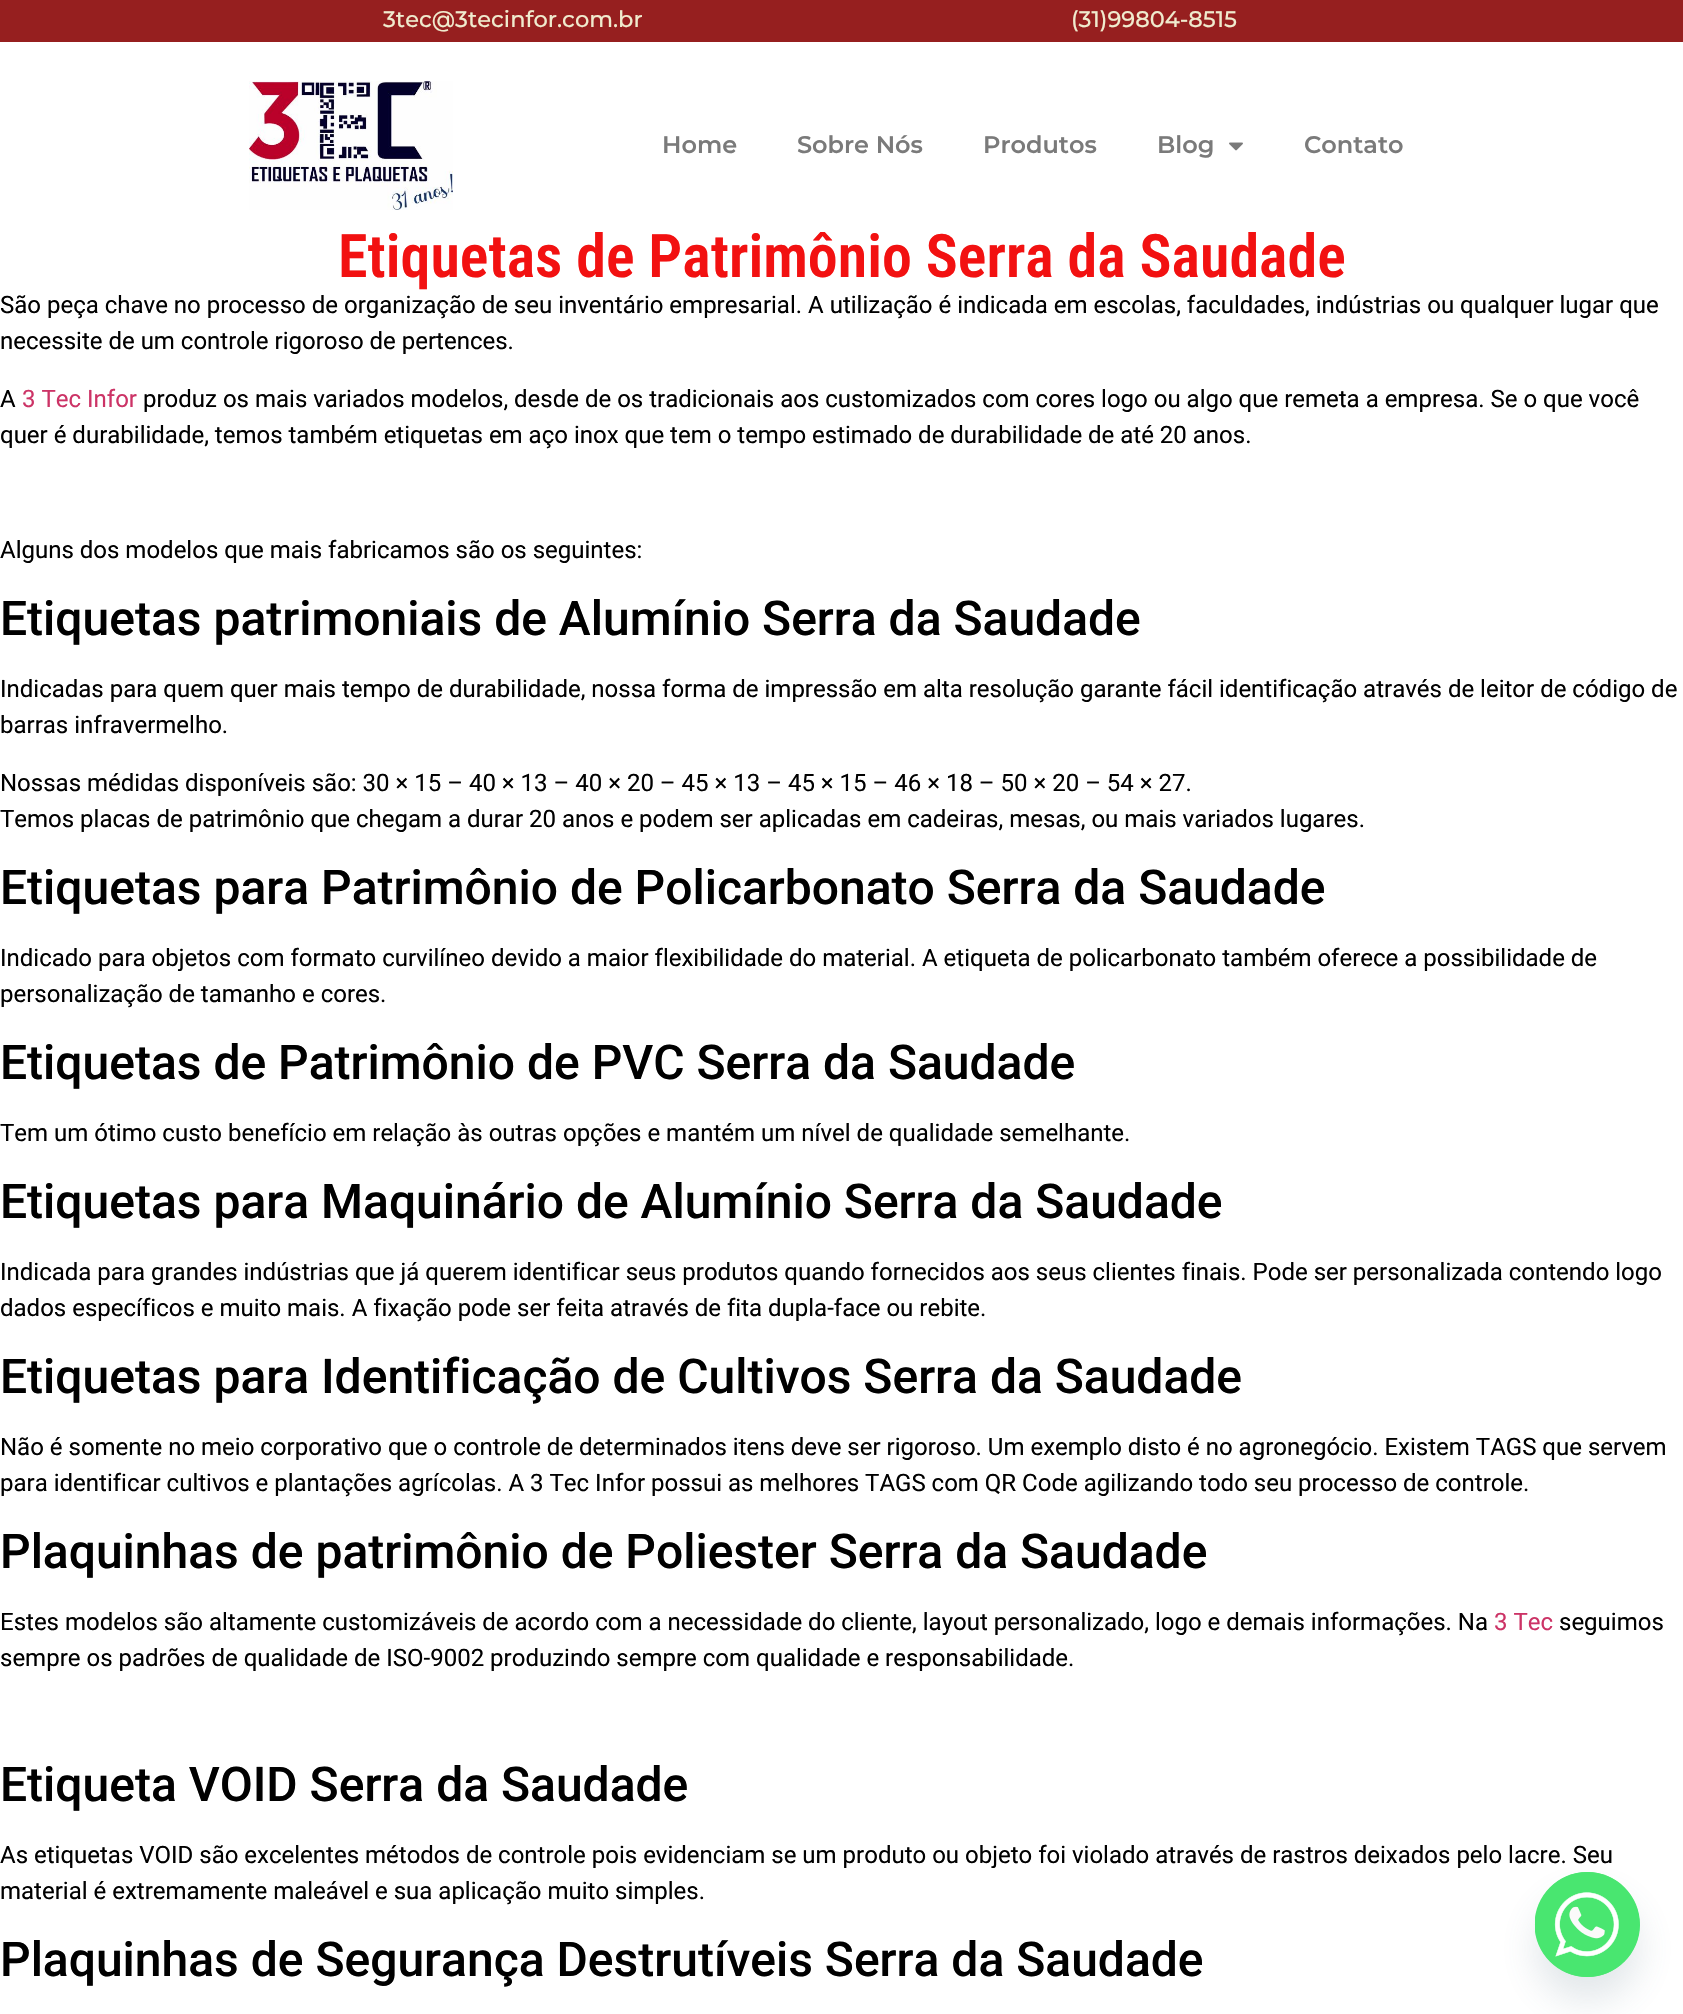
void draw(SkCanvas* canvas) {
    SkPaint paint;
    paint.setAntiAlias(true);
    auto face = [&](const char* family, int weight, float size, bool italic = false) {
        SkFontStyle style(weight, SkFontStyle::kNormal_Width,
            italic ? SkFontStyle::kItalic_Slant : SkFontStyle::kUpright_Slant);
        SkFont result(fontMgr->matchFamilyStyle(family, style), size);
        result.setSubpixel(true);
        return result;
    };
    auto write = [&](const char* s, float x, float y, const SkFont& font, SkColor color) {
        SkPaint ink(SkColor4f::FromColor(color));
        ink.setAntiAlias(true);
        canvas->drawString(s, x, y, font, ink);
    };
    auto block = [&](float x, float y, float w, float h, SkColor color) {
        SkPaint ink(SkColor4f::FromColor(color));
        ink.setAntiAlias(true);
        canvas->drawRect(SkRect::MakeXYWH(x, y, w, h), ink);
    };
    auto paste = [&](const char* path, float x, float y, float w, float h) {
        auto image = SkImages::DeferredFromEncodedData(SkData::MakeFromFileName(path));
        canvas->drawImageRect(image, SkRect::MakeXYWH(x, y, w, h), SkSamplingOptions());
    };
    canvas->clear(SK_ColorWHITE);
    block(0, 0, 1683, 42, SkColorSetRGB(150, 31, 31));
    auto kFont1 = face("Montserrat", 500, 22.5f);
    write("3tec@3tecinfor.com.br", 383, 27, kFont1, SkColorSetRGB(240, 235, 206));
    write("(31)99804-8515", 1071, 27, kFont1, SkColorSetRGB(240, 235, 206));
    paste("pic1.png", 249, 81, 204, 129);
    auto kFont2 = face("Montserrat", 600, 24);
    write("Home", 662, 153, kFont2, SkColorSetRGB(122, 122, 122));
    write("Sobre Nós", 797, 153, kFont2, SkColorSetRGB(122, 122, 122));
    write("Produtos", 983, 153, kFont2, SkColorSetRGB(122, 122, 122));
    write("Blog", 1157, 153, kFont2, SkColorSetRGB(122, 122, 122));
    paste("pic2.png", 1229, 142, 14, 9);
    write("Contato", 1304, 153, kFont2, SkColorSetRGB(122, 122, 122));
    auto kFont3 = face("Roboto Condensed", 600, 60);
    write("Etiquetas de Patrimônio Serra da Saudade", 338, 277, kFont3, SkColorSetRGB(242, 17, 17));
    auto kFont4 = face("Roboto", 400, 24);
    write("São peça chave no processo de organização de seu inventário empresarial. A utilização é indicada em escolas, faculdades, indústrias ou qualquer lugar que", 0, 313, kFont4, SK_ColorBLACK);
    write("necessite de um controle rigoroso de pertences.", 0, 349, kFont4, SK_ColorBLACK);
    write("A", 0, 407, kFont4, SK_ColorBLACK);
    write("3 Tec Infor", 22, 407, kFont4, SkColorSetRGB(204, 51, 102));
    write("produz os mais variados modelos, desde de os tradicionais aos customizados com cores logo ou algo que remeta a empresa. Se o que você", 143, 407, kFont4, SK_ColorBLACK);
    write("quer é durabilidade, temos também etiquetas em aço inox que tem o tempo estimado de durabilidade de até 20 anos.", 0, 443, kFont4, SK_ColorBLACK);
    write("Alguns dos modelos que mais fabricamos são os seguintes:", 0, 558, kFont4, SK_ColorBLACK);
    auto kFont5 = face("Roboto", 500, 48);
    write("Etiquetas patrimoniais de Alumínio Serra da Saudade", 0, 635, kFont5, SK_ColorBLACK);
    write("Indicadas para quem quer mais tempo de durabilidade, nossa forma de impressão em alta resolução garante fácil identificação através de leitor de código de", 0, 697, kFont4, SK_ColorBLACK);
    write("barras infravermelho.", 0, 733, kFont4, SK_ColorBLACK);
    write("Nossas médidas disponíveis são: 30 × 15 – 40 × 13 – 40 × 20 – 45 × 13 – 45 × 15 – 46 × 18 – 50 × 20 – 54 × 27.", 0, 791, kFont4, SK_ColorBLACK);
    write("Temos placas de patrimônio que chegam a durar 20 anos e podem ser aplicadas em cadeiras, mesas, ou mais variados lugares.", 0, 827, kFont4, SK_ColorBLACK);
    write("Etiquetas para Patrimônio de Policarbonato Serra da Saudade", 0, 904, kFont5, SK_ColorBLACK);
    write("Indicado para objetos com formato curvilíneo devido a maior flexibilidade do material. A etiqueta de policarbonato também oferece a possibilidade de", 0, 966, kFont4, SK_ColorBLACK);
    write("personalização de tamanho e cores.", 0, 1002, kFont4, SK_ColorBLACK);
    write("Etiquetas de Patrimônio de PVC Serra da Saudade", 0, 1079, kFont5, SK_ColorBLACK);
    write("Tem um ótimo custo benefício em relação às outras opções e mantém um nível de qualidade semelhante.", 0, 1141, kFont4, SK_ColorBLACK);
    write("Etiquetas para Maquinário de Alumínio Serra da Saudade", 0, 1218, kFont5, SK_ColorBLACK);
    write("Indicada para grandes indústrias que já querem identificar seus produtos quando fornecidos aos seus clientes finais. Pode ser personalizada contendo logo", 0, 1280, kFont4, SK_ColorBLACK);
    write("dados específicos e muito mais. A fixação pode ser feita através de fita dupla-face ou rebite.", 0, 1316, kFont4, SK_ColorBLACK);
    write("Etiquetas para Identificação de Cultivos Serra da Saudade", 0, 1393, kFont5, SK_ColorBLACK);
    write("Não é somente no meio corporativo que o controle de determinados itens deve ser rigoroso. Um exemplo disto é no agronegócio. Existem TAGS que servem", 0, 1455, kFont4, SK_ColorBLACK);
    write("para identificar cultivos e plantações agrícolas. A 3 Tec Infor possui as melhores TAGS com QR Code agilizando todo seu processo de controle.", 0, 1491, kFont4, SK_ColorBLACK);
    write("Plaquinhas de patrimônio de Poliester Serra da Saudade", 0, 1568, kFont5, SK_ColorBLACK);
    write("Estes modelos são altamente customizáveis de acordo com a necessidade do cliente, layout personalizado, logo e demais informações. Na", 0, 1630, kFont4, SK_ColorBLACK);
    write("3 Tec", 1494, 1630, kFont4, SkColorSetRGB(204, 51, 102));
    write("seguimos", 1559, 1630, kFont4, SK_ColorBLACK);
    write("sempre os padrões de qualidade de ISO-9002 produzindo sempre com qualidade e responsabilidade.", 0, 1666, kFont4, SK_ColorBLACK);
    write("Etiqueta VOID Serra da Saudade", 0, 1801, kFont5, SK_ColorBLACK);
    write("As etiquetas VOID são excelentes métodos de controle pois evidenciam se um produto ou objeto foi violado através de rastros deixados pelo lacre. Seu", 0, 1863, kFont4, SK_ColorBLACK);
    write("material é extremamente maleável e sua aplicação muito simples.", 0, 1899, kFont4, SK_ColorBLACK);
    write("Plaquinhas de Segurança Destrutíveis Serra da Saudade", 0, 1976, kFont5, SK_ColorBLACK);
    paint.setColor(SkColorSetARGB(41, 73, 104, 126));
    paint.setMaskFilter(SkMaskFilter::MakeBlur(kNormal_SkBlurStyle, 18));
    canvas->drawRoundRect(SkRect::MakeXYWH(1535, 1896, 105, 105), 52.5f, 52.5f, paint);
    paint.setMaskFilter(nullptr);
    paint.setColor(SkColorSetRGB(73, 230, 112));
    canvas->drawCircle(1587.5f, 1924.5f, 52.5f, paint);
    paste("pic3.png", 1535, 1872, 105, 105);
}
